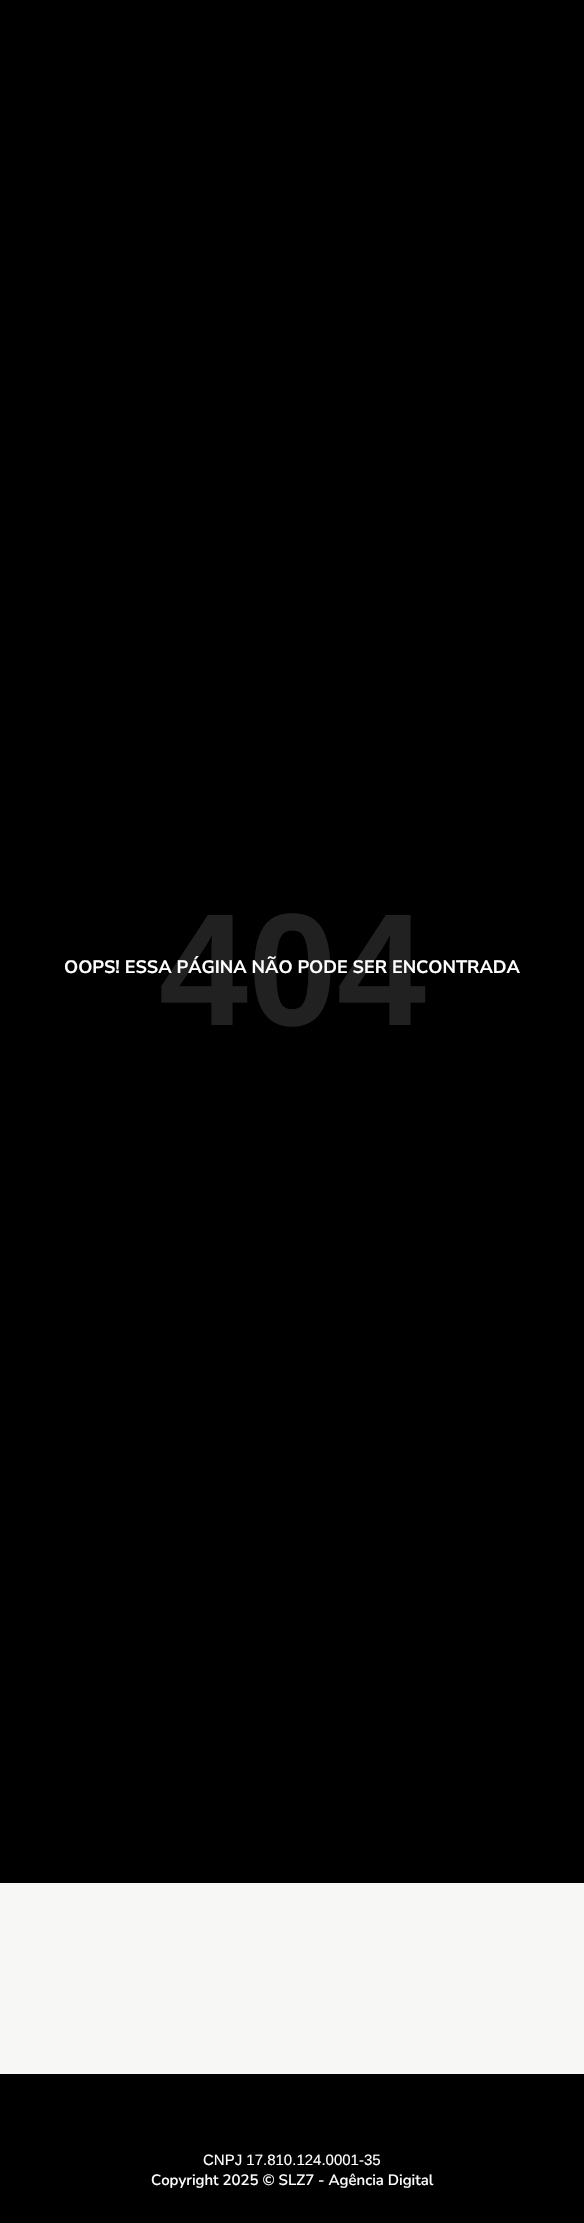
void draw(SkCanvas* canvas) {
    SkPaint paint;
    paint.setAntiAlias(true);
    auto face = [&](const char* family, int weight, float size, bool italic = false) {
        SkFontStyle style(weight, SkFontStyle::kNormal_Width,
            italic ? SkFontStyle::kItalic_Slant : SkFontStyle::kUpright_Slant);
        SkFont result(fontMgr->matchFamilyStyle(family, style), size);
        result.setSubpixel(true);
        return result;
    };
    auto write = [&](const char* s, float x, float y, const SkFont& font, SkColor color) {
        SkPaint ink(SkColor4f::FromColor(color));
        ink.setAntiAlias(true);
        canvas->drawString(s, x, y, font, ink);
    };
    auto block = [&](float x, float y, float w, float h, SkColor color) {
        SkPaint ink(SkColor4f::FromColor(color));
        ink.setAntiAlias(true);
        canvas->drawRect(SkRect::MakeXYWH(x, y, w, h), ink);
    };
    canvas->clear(SkColorSetRGB(247, 247, 245));
    block(0, 0, 584, 1883, SK_ColorBLACK);
    auto kFont1 = face("Liberation Sans", 700, 160);
    write("404", 159, 1025, kFont1, SkColorSetRGB(33, 33, 33));
    auto kFont2 = face("Nunito Sans", 700, 18);
    write("OOPS! ESSA PÁGINA NÃO PODE SER ENCONTRADA", 64, 973, kFont2, SK_ColorWHITE);
    block(0, 2074, 584, 149, SK_ColorBLACK);
    auto kFont3 = face("Liberation Sans", 400, 15);
    write("CNPJ 17.810.124.0001-35", 203, 2165, kFont3, SK_ColorWHITE);
    auto kFont4 = face("Nunito Sans", 600, 15);
    write("Copyright 2025 © SLZ7 - Agência Digital", 151, 2185, kFont4, SK_ColorWHITE);
}
